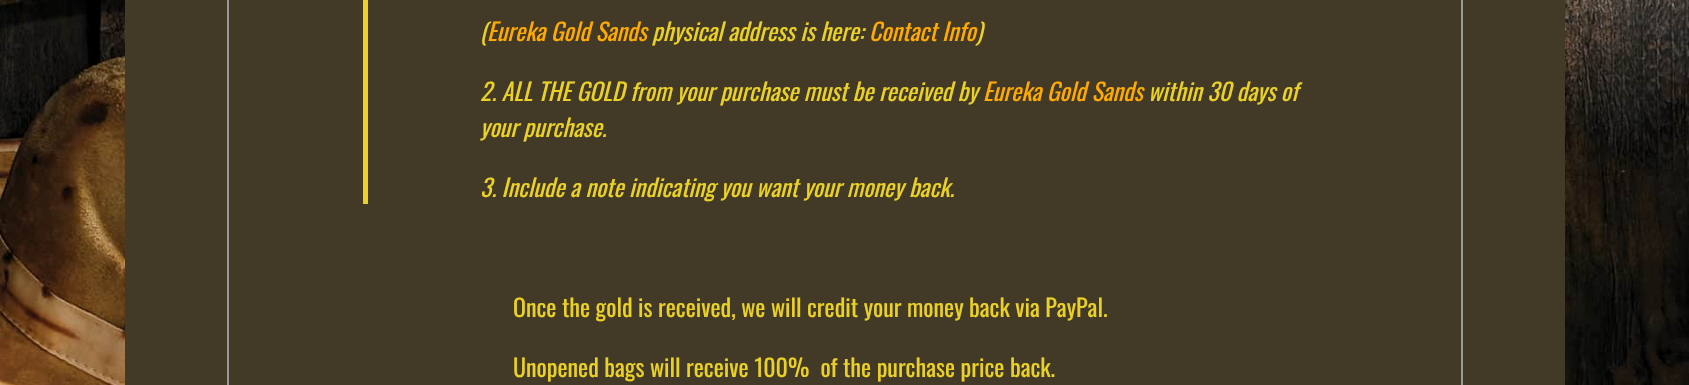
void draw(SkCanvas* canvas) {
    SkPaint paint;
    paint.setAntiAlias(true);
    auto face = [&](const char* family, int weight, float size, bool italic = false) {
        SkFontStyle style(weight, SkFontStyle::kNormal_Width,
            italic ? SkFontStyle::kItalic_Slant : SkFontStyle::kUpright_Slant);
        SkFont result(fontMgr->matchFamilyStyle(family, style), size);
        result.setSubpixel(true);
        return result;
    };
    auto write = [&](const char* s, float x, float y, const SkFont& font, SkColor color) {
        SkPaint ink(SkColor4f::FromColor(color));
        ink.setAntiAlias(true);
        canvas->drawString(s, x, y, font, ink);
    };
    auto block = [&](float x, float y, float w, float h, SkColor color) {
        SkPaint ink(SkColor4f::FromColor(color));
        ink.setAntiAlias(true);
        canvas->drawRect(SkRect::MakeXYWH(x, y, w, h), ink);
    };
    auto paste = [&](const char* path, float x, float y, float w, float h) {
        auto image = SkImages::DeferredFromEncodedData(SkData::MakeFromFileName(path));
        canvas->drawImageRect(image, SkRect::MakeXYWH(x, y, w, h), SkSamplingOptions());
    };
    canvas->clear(SK_ColorWHITE);
    paste("pic1.png", 0, 0, 1689, 385);
    block(125, 0, 1440, 385, SkColorSetRGB(66, 58, 39));
    paint.setStyle(SkPaint::kStroke_Style);
    paint.setStrokeWidth(2);
    paint.setColor(SkColorSetRGB(153, 153, 153));
    canvas->drawRect(SkRect::MakeXYWH(228, -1, 1234, 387), paint);
    block(363, 0, 5, 204, SkColorSetRGB(235, 209, 38));
    auto kFont1 = face("Oswald", 400, 24, true);
    write("(", 480, 41, kFont1, SkColorSetRGB(235, 209, 38));
    write("Eureka Gold Sands", 487, 41, kFont1, SkColorSetRGB(255, 170, 0));
    write("physical address is here:", 652, 41, kFont1, SkColorSetRGB(235, 209, 38));
    write("Contact Info", 869, 41, kFont1, SkColorSetRGB(255, 170, 0));
    write(")", 976, 41, kFont1, SkColorSetRGB(235, 209, 38));
    write("2. ALL THE GOLD from your purchase must be received by", 480, 101, kFont1, SkColorSetRGB(235, 209, 38));
    write("Eureka Gold Sands", 983, 101, kFont1, SkColorSetRGB(255, 170, 0));
    write("within 30 days of", 1148, 101, kFont1, SkColorSetRGB(235, 209, 38));
    write("your purchase.", 480, 137, kFont1, SkColorSetRGB(235, 209, 38));
    write("3. Include a note indicating you want your money back.", 480, 197, kFont1, SkColorSetRGB(235, 209, 38));
    auto kFont2 = face("Oswald", 400, 24);
    write("Once the gold is received, we will credit your money back via PayPal.", 513, 317, kFont2, SkColorSetRGB(235, 209, 38));
    write("Unopened bags will receive 100%  of the purchase price back.", 513, 377, kFont2, SkColorSetRGB(235, 209, 38));
}
